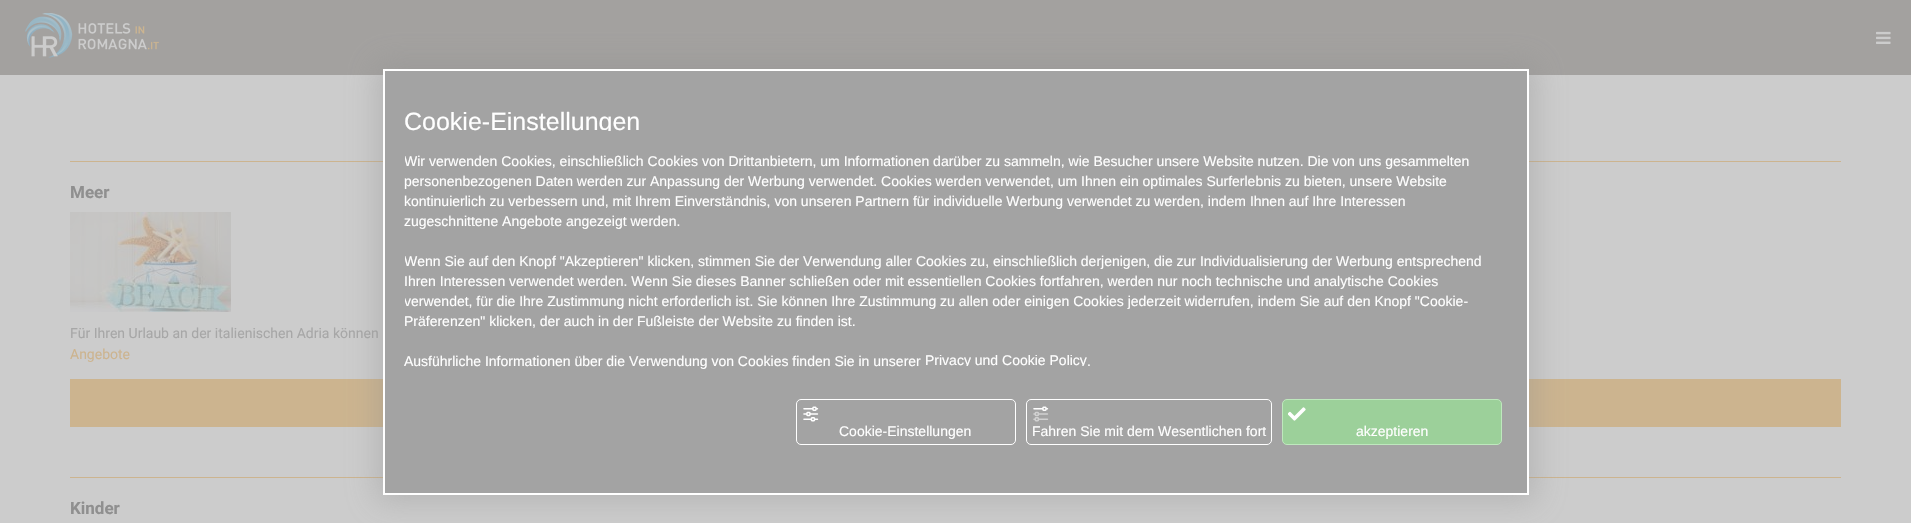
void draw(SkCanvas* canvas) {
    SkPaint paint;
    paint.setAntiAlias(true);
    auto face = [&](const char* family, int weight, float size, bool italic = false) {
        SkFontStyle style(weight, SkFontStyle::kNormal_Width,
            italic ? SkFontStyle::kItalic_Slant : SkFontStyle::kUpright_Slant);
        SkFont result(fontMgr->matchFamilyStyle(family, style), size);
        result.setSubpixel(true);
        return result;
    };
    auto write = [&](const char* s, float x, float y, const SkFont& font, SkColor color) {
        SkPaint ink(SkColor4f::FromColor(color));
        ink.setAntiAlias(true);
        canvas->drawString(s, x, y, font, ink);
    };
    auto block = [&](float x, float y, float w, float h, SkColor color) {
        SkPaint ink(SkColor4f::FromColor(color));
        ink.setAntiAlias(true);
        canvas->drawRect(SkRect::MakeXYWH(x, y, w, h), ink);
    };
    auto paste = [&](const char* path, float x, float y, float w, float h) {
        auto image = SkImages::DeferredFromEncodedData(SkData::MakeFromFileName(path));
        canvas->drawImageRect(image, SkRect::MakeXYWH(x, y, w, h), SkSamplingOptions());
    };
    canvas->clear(SkColorSetRGB(204, 204, 204));
    block(0, 0, 1911, 75, SkColorSetRGB(163, 161, 159));
    paste("pic1.png", 25, 13, 134, 45);
    paste("pic2.png", 1876, 31, 15, 13);
    block(70, 161, 1771, 1, SkColorSetRGB(204, 180, 143));
    auto kFont1 = face("Roboto", 700, 17);
    write("Meer", 70, 198, kFont1, SkColorSetRGB(143, 143, 143));
    paste("pic3.png", 70, 212, 161, 100);
    auto kFont2 = face("Roboto", 400, 14);
    write("Für Ihren Urlaub an der italienischen Adria können", 70, 338, kFont2, SkColorSetRGB(167, 167, 167));
    write("Angebote", 70, 359, kFont2, SkColorSetRGB(204, 180, 143));
    block(70, 379, 1771, 48, SkColorSetRGB(204, 180, 143));
    block(70, 477, 1771, 1, SkColorSetRGB(204, 180, 143));
    write("Kinder", 70, 514, kFont1, SkColorSetRGB(143, 143, 143));
    paint.setColor(SkColorSetARGB(97, 143, 143, 143));
    paint.setMaskFilter(SkMaskFilter::MakeBlur(kNormal_SkBlurStyle, 14.5f));
    canvas->drawRect(SkRect::MakeXYWH(376, 62, 1160, 440), paint);
    paint.setMaskFilter(nullptr);
    paint.setColor(SkColorSetRGB(163, 163, 163));
    canvas->drawRect(SkRect::MakeXYWH(384, 70, 1144, 424), paint);
    paint.setStyle(SkPaint::kStroke_Style);
    paint.setStrokeWidth(2);
    paint.setColor(SK_ColorWHITE);
    canvas->drawRect(SkRect::MakeXYWH(384, 70, 1144, 424), paint);
    canvas->save();
    canvas->clipRect(SkRect::MakeXYWH(405, 111, 236, 20));
    auto kFont3 = face("Liberation Sans", 400, 25);
    write("Cookie-Einstellungen", 404, 130, kFont3, SK_ColorWHITE);
    canvas->restore();
    canvas->save();
    canvas->clipRect(SkRect::MakeXYWH(405, 151, 1102, 220));
    auto kFont4 = face("Liberation Sans", 400, 14);
    write("Wir verwenden Cookies, einschließlich Cookies von Drittanbietern, um Informationen darüber zu sammeln, wie Besucher unsere Website nutzen. Die von uns gesammelten", 404, 166, kFont4, SK_ColorWHITE);
    canvas->restore();
    write("personenbezogenen Daten werden zur Anpassung der Werbung verwendet. Cookies werden verwendet, um Ihnen ein optimales Surferlebnis zu bieten, unsere Website", 404, 186, kFont4, SK_ColorWHITE);
    write("kontinuierlich zu verbessern und, mit Ihrem Einverständnis, von unseren Partnern für individuelle Werbung verwendet zu werden, indem Ihnen auf Ihre Interessen", 404, 206, kFont4, SK_ColorWHITE);
    write("zugeschnittene Angebote angezeigt werden.", 404, 226, kFont4, SK_ColorWHITE);
    canvas->save();
    canvas->clipRect(SkRect::MakeXYWH(405, 151, 1102, 220));
    write("Wenn Sie auf den Knopf \"Akzeptieren\" klicken, stimmen Sie der Verwendung aller Cookies zu, einschließlich derjenigen, die zur Individualisierung der Werbung entsprechend", 404, 266, kFont4, SK_ColorWHITE);
    canvas->restore();
    write("Ihren Interessen verwendet werden. Wenn Sie dieses Banner schließen oder mit essentiellen Cookies fortfahren, werden nur noch technische und analytische Cookies", 404, 286, kFont4, SK_ColorWHITE);
    canvas->save();
    canvas->clipRect(SkRect::MakeXYWH(405, 151, 1102, 220));
    write("verwendet, für die Ihre Zustimmung nicht erforderlich ist. Sie können Ihre Zustimmung zu allen oder einigen Cookies jederzeit widerrufen, indem Sie auf den Knopf \"Cookie-", 404, 306, kFont4, SK_ColorWHITE);
    canvas->restore();
    write("Präferenzen\" klicken, der auch in der Fußleiste der Website zu finden ist.", 404, 326, kFont4, SK_ColorWHITE);
    write("Ausführliche Informationen über die Verwendung von Cookies finden Sie in unserer", 404, 366, kFont4, SK_ColorWHITE);
    canvas->save();
    canvas->clipRect(SkRect::MakeXYWH(925, 355, 162, 11));
    write("Privacy und Cookie Policy", 925, 365, kFont4, SK_ColorWHITE);
    canvas->restore();
    write(".", 1087, 366, kFont4, SK_ColorWHITE);
    paint.setStrokeWidth(1);
    canvas->drawRoundRect(SkRect::MakeXYWH(796.5f, 399.5f, 219, 45), 4.5f, 4.5f, paint);
    paste("pic4.png", 803, 406, 16, 16);
    write("Cookie-Einstellungen", 839, 436, kFont4, SK_ColorWHITE);
    canvas->drawRoundRect(SkRect::MakeXYWH(1026.5f, 399.5f, 245, 45), 4.5f, 4.5f, paint);
    paste("pic5.png", 1033, 406, 16, 16);
    write("Fahren Sie mit dem Wesentlichen fort", 1032, 436, kFont4, SK_ColorWHITE);
    paint.setStyle(SkPaint::kFill_Style);
    paint.setColor(SkColorSetRGB(156, 208, 154));
    canvas->drawRoundRect(SkRect::MakeXYWH(1282.5f, 399.5f, 219, 45), 4.5f, 4.5f, paint);
    paint.setStyle(SkPaint::kStroke_Style);
    paint.setColor(SkColorSetRGB(190, 232, 189));
    canvas->drawRoundRect(SkRect::MakeXYWH(1282.5f, 399.5f, 219, 45), 4.5f, 4.5f, paint);
    paste("pic6.png", 1288, 407, 18, 14);
    write("akzeptieren", 1356, 436, kFont4, SK_ColorWHITE);
}
